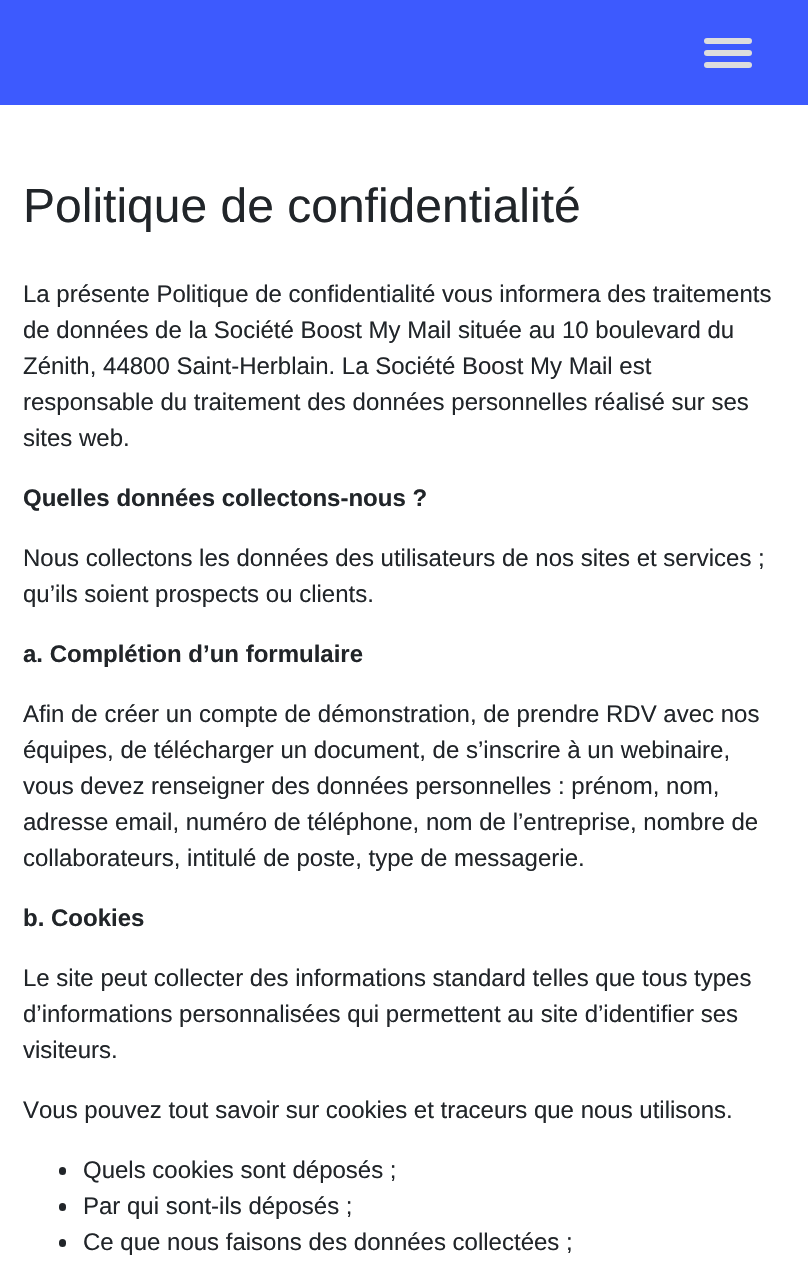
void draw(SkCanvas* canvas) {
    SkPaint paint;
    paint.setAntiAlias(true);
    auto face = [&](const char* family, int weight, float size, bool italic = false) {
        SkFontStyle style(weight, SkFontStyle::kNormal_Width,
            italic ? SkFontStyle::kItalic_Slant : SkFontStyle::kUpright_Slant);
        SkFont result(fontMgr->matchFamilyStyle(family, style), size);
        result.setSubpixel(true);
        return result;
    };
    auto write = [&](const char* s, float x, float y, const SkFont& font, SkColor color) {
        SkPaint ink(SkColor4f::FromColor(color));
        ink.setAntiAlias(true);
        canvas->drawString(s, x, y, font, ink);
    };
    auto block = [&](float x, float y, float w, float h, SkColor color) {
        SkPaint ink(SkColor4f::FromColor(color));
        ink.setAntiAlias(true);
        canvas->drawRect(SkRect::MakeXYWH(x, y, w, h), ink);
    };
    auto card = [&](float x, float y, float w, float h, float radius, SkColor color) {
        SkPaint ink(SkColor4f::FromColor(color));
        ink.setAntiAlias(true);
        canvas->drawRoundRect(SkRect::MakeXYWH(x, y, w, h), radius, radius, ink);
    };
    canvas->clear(SK_ColorWHITE);
    block(0, 0, 808, 105, SkColorSetRGB(61, 90, 254));
    card(704, 38, 48, 6, 3, SkColorSetRGB(221, 221, 221));
    card(704, 50, 48, 6, 3, SkColorSetRGB(221, 221, 221));
    card(704, 62, 48, 6, 3, SkColorSetRGB(221, 221, 221));
    auto kFont1 = face("Liberation Sans", 400, 48);
    write("Politique de confidentialité", 23, 222, kFont1, SkColorSetRGB(33, 37, 41));
    auto kFont2 = face("Liberation Sans", 400, 24);
    write("La présente Politique de confidentialité vous informera des traitements", 23, 302, kFont2, SkColorSetRGB(33, 37, 41));
    write("de données de la Société Boost My Mail située au 10 boulevard du", 23, 338, kFont2, SkColorSetRGB(33, 37, 41));
    write("Zénith, 44800 Saint-Herblain. La Société Boost My Mail est", 23, 374, kFont2, SkColorSetRGB(33, 37, 41));
    write("responsable du traitement des données personnelles réalisé sur ses", 23, 410, kFont2, SkColorSetRGB(33, 37, 41));
    write("sites web.", 23, 446, kFont2, SkColorSetRGB(33, 37, 41));
    auto kFont3 = face("Liberation Sans", 700, 24);
    write("Quelles données collectons-nous ?", 23, 506, kFont3, SkColorSetRGB(33, 37, 41));
    write("Nous collectons les données des utilisateurs de nos sites et services ;", 23, 566, kFont2, SkColorSetRGB(33, 37, 41));
    write("qu’ils soient prospects ou clients.", 23, 602, kFont2, SkColorSetRGB(33, 37, 41));
    write("a. Complétion d’un formulaire", 23, 662, kFont3, SkColorSetRGB(33, 37, 41));
    write("Afin de créer un compte de démonstration, de prendre RDV avec nos", 23, 722, kFont2, SkColorSetRGB(33, 37, 41));
    write("équipes, de télécharger un document, de s’inscrire à un webinaire,", 23, 758, kFont2, SkColorSetRGB(33, 37, 41));
    write("vous devez renseigner des données personnelles : prénom, nom,", 23, 794, kFont2, SkColorSetRGB(33, 37, 41));
    write("adresse email, numéro de téléphone, nom de l’entreprise, nombre de", 23, 830, kFont2, SkColorSetRGB(33, 37, 41));
    write("collaborateurs, intitulé de poste, type de messagerie.", 23, 866, kFont2, SkColorSetRGB(33, 37, 41));
    write("b. Cookies", 23, 926, kFont3, SkColorSetRGB(33, 37, 41));
    write("Le site peut collecter des informations standard telles que tous types", 23, 986, kFont2, SkColorSetRGB(33, 37, 41));
    write("d’informations personnalisées qui permettent au site d’identifier ses", 23, 1022, kFont2, SkColorSetRGB(33, 37, 41));
    write("visiteurs.", 23, 1058, kFont2, SkColorSetRGB(33, 37, 41));
    write("Vous pouvez tout savoir sur cookies et traceurs que nous utilisons.", 23, 1118, kFont2, SkColorSetRGB(33, 37, 41));
    card(59, 1167, 7, 8, 3.5f, SkColorSetRGB(33, 37, 41));
    write("Quels cookies sont déposés ;", 83, 1178, kFont2, SkColorSetRGB(33, 37, 41));
    card(59, 1203, 7, 8, 3.5f, SkColorSetRGB(33, 37, 41));
    write("Par qui sont-ils déposés ;", 83, 1214, kFont2, SkColorSetRGB(33, 37, 41));
    card(59, 1239, 7, 8, 3.5f, SkColorSetRGB(33, 37, 41));
    write("Ce que nous faisons des données collectées ;", 83, 1250, kFont2, SkColorSetRGB(33, 37, 41));
}
